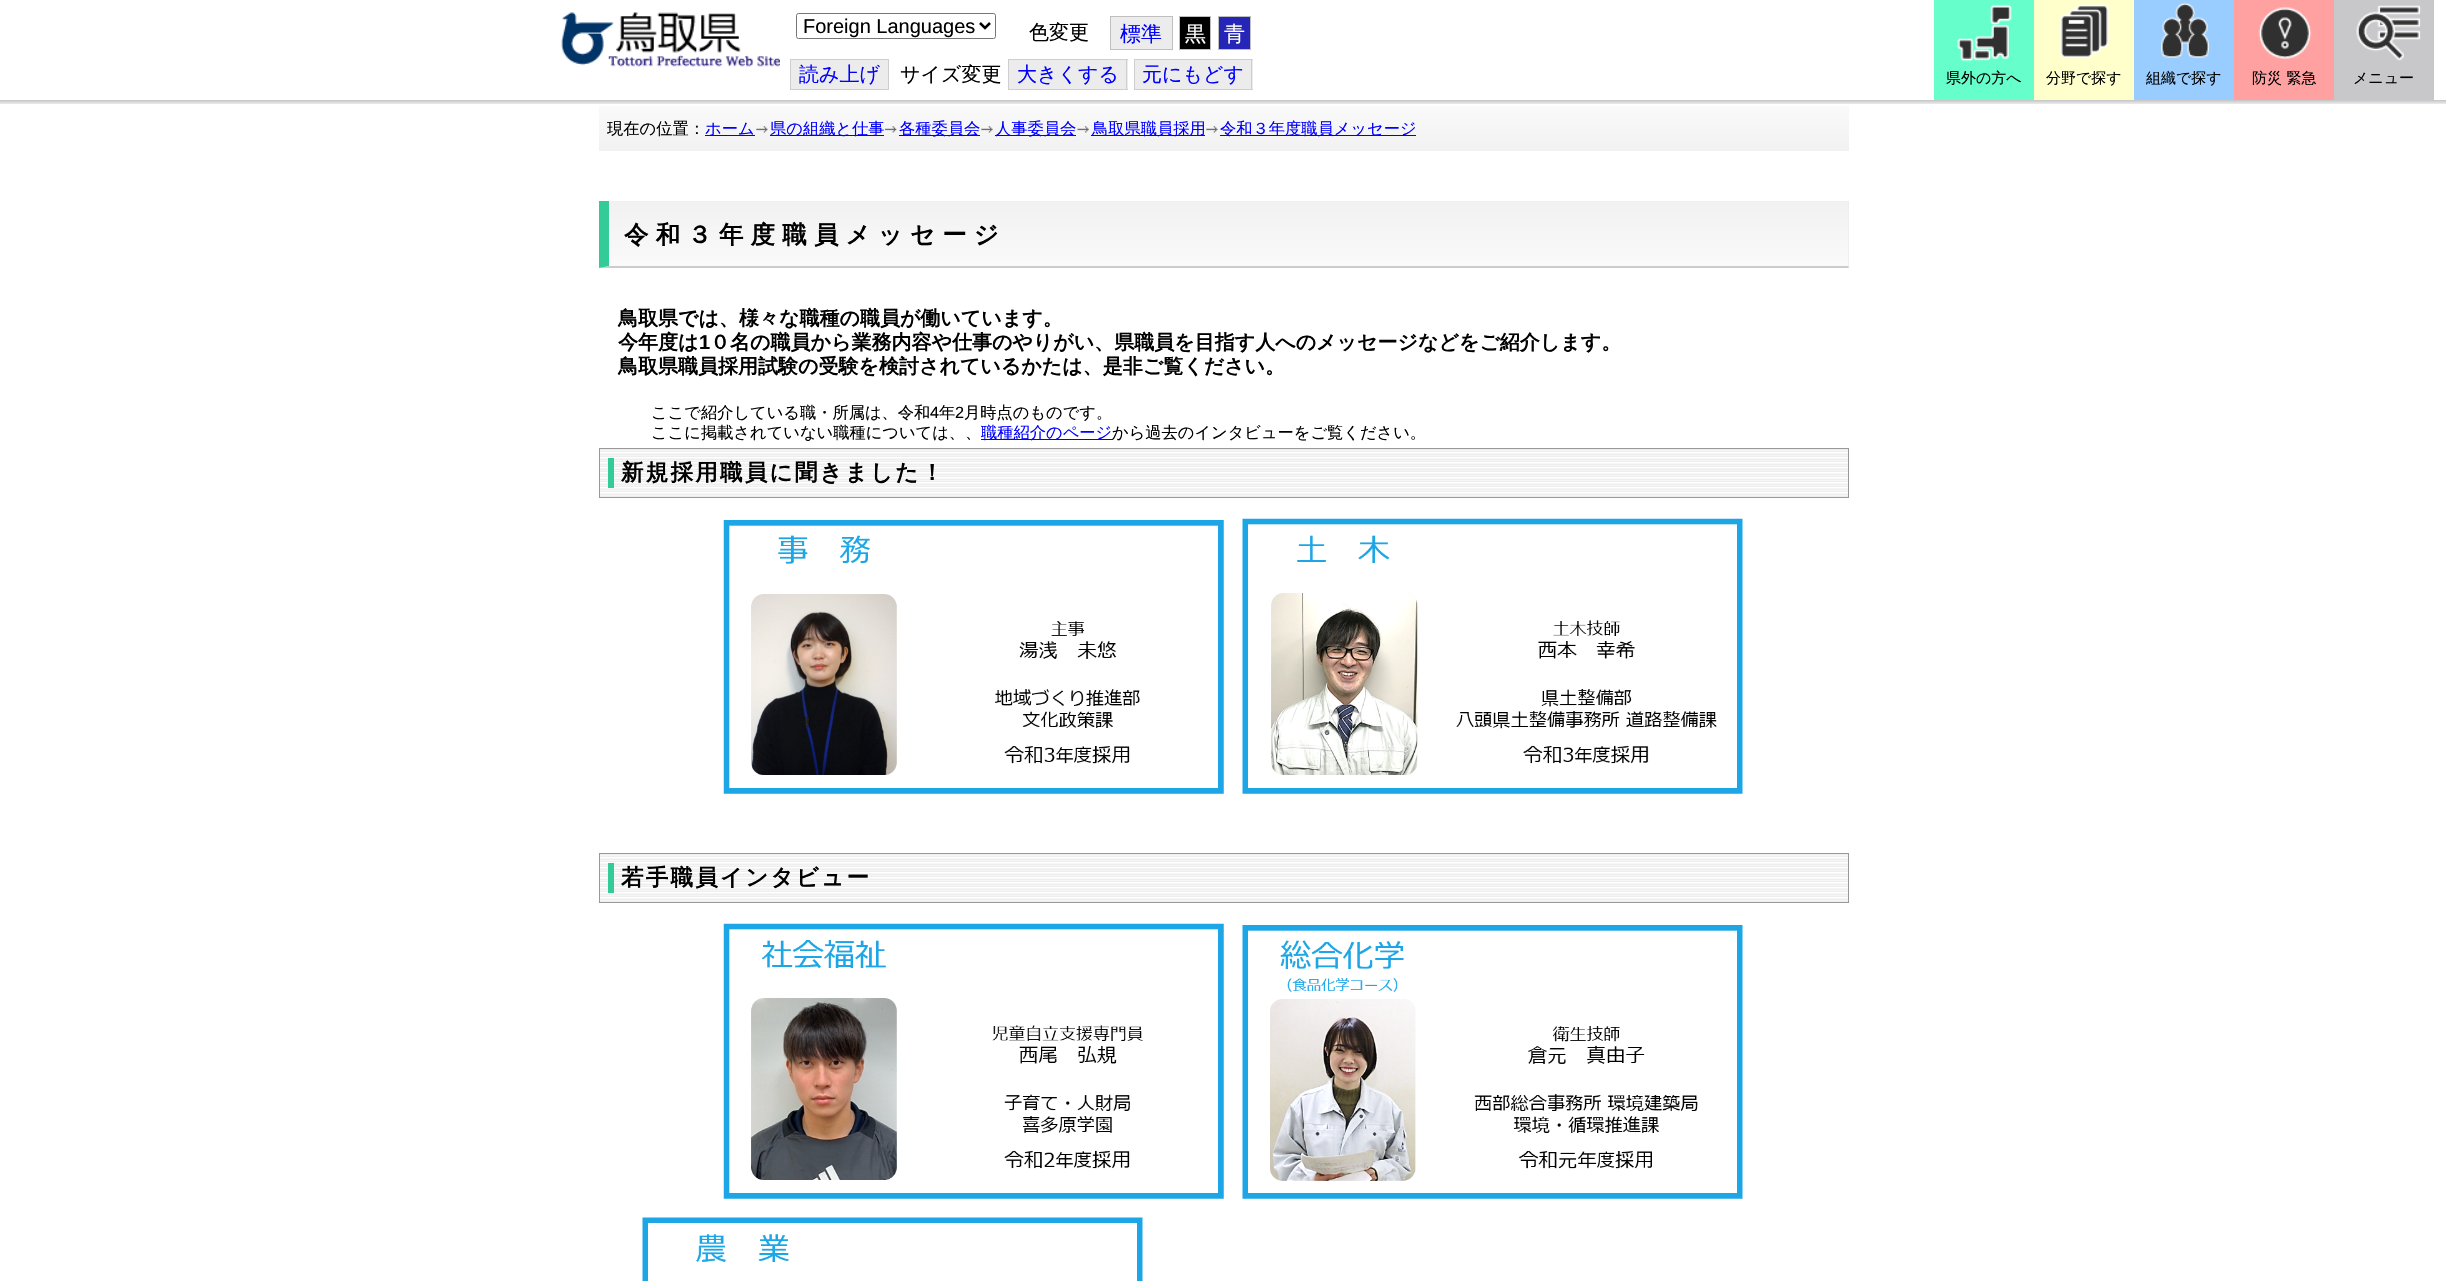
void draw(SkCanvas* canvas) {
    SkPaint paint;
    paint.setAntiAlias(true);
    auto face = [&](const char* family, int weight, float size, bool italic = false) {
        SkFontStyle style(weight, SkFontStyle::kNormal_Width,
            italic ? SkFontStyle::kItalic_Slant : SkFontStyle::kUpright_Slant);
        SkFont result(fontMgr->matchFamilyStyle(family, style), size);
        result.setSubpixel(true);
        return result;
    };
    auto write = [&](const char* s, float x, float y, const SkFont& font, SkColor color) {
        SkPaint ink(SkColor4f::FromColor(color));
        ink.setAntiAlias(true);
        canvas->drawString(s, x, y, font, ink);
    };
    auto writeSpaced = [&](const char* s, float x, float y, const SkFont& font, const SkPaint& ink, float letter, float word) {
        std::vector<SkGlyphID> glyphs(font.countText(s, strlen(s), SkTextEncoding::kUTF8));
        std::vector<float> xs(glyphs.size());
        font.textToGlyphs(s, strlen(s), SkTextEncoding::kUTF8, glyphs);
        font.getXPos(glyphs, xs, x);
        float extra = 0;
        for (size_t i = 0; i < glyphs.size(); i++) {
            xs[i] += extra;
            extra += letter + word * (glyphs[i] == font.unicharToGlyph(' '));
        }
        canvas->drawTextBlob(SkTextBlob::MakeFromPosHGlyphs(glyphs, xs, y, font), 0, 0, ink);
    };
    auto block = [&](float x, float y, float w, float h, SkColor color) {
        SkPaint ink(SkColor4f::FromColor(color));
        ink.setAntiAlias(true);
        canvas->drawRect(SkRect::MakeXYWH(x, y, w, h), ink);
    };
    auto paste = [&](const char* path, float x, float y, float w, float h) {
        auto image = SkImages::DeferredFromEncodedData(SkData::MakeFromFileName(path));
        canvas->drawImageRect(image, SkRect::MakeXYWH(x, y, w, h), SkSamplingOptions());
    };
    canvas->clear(SK_ColorWHITE);
    {
        const SkColor colors[] = {SkColorSetRGB(250, 250, 250), SkColorSetRGB(241, 241, 241)};
        const float stops[] = {0, 1};
        const SkPoint ends[] = {{1224, 106}, {1224, 151}};
        paint.setShader(SkGradientShader::MakeLinear(ends, colors, stops, 2, SkTileMode::kClamp));
        paint.setAlpha(255);
    }
    canvas->drawRect(SkRect::MakeXYWH(599, 106, 1250, 45), paint);
    canvas->save();
    canvas->clipRect(SkRect::MakeXYWH(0, 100, 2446, 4));
    paint.setShader(nullptr);
    paint.setColor(SkColorSetARGB(26, 0, 0, 0));
    paint.setMaskFilter(SkMaskFilter::MakeBlur(kNormal_SkBlurStyle, 3));
    canvas->drawRect(SkRect::MakeXYWH(-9, 1, 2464, 100), paint);
    paint.setMaskFilter(nullptr);
    paint.setMaskFilter(SkMaskFilter::MakeBlur(kNormal_SkBlurStyle, 3));
    canvas->drawRect(SkRect::MakeXYWH(-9, 1, 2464, 100), paint);
    paint.setMaskFilter(nullptr);
    paint.setMaskFilter(SkMaskFilter::MakeBlur(kNormal_SkBlurStyle, 3));
    canvas->drawRect(SkRect::MakeXYWH(-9, 1, 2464, 100), paint);
    paint.setMaskFilter(nullptr);
    paint.setMaskFilter(SkMaskFilter::MakeBlur(kNormal_SkBlurStyle, 3));
    canvas->drawRect(SkRect::MakeXYWH(-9, 1, 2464, 100), paint);
    paint.setMaskFilter(nullptr);
    canvas->restore();
    paste("pic1.png", 561, 12, 219, 55);
    paint.setStyle(SkPaint::kStroke_Style);
    paint.setStrokeWidth(1);
    paint.setColor(SkColorSetRGB(118, 118, 118));
    canvas->drawRoundRect(SkRect::MakeXYWH(796.5f, 13.5f, 199, 25), 2, 2, paint);
    paint.setStrokeWidth(2.5f);
    paint.setColor(SK_ColorBLACK);
    canvas->drawPath(SkPathBuilder().moveTo(980, 23).lineTo(985, 28).lineTo(990, 23).detach(), paint);
    auto kFont1 = face("Liberation Sans", 400, 20);
    write("Foreign Languages", 803, 33, kFont1, SK_ColorBLACK);
    auto kFont2 = face("WenQuanYi Zen Hei", 500, 20);
    write("色変更", 1029, 39, kFont2, SK_ColorBLACK);
    paint.setStyle(SkPaint::kFill_Style);
    paint.setColor(SkColorSetRGB(236, 236, 236));
    canvas->drawRect(SkRect::MakeXYWH(1110.5f, 16.5f, 62, 33), paint);
    paint.setStyle(SkPaint::kStroke_Style);
    paint.setStrokeWidth(1);
    paint.setColor(SkColorSetRGB(191, 191, 191));
    canvas->drawRect(SkRect::MakeXYWH(1110.5f, 16.5f, 62, 33), paint);
    auto kFont3 = face("WenQuanYi Zen Hei", 500, 21);
    write("標準", 1120, 41, kFont3, SkColorSetRGB(0, 0, 255));
    paint.setStyle(SkPaint::kFill_Style);
    paint.setColor(SK_ColorBLACK);
    canvas->drawRect(SkRect::MakeXYWH(1179.5f, 16.5f, 31, 33), paint);
    paint.setStyle(SkPaint::kStroke_Style);
    paint.setColor(SkColorSetRGB(191, 191, 191));
    canvas->drawRect(SkRect::MakeXYWH(1179.5f, 16.5f, 31, 33), paint);
    write("黒", 1185, 41, kFont3, SK_ColorWHITE);
    paint.setStyle(SkPaint::kFill_Style);
    paint.setColor(SkColorSetRGB(37, 37, 184));
    canvas->drawRect(SkRect::MakeXYWH(1218.5f, 16.5f, 32, 33), paint);
    paint.setStyle(SkPaint::kStroke_Style);
    paint.setColor(SkColorSetRGB(191, 191, 191));
    canvas->drawRect(SkRect::MakeXYWH(1218.5f, 16.5f, 32, 33), paint);
    write("青", 1224, 41, kFont3, SK_ColorWHITE);
    paint.setStyle(SkPaint::kFill_Style);
    paint.setColor(SkColorSetRGB(236, 236, 236));
    canvas->drawRect(SkRect::MakeXYWH(790.5f, 59.5f, 98, 30), paint);
    paint.setStyle(SkPaint::kStroke_Style);
    paint.setColor(SkColorSetRGB(206, 206, 206));
    canvas->drawRect(SkRect::MakeXYWH(790.5f, 59.5f, 98, 30), paint);
    write("読み上げ", 799, 81, kFont2, SkColorSetRGB(0, 0, 255));
    write("サイズ変更", 900, 81, kFont2, SK_ColorBLACK);
    block(1009, 60, 119, 29, SkColorSetRGB(236, 236, 236));
    write("大きくする", 1017, 81, kFont2, SkColorSetRGB(0, 0, 255));
    block(1008, 59, 120, 1, SkColorSetRGB(206, 206, 206));
    block(1008, 89, 28, 1, SkColorSetRGB(206, 206, 206));
    block(1008, 59, 1, 31, SkColorSetRGB(206, 206, 206));
    block(1126, 59, 1, 31, SkColorSetRGB(206, 206, 206));
    block(1036, 89, 92, 1, SkColorSetRGB(206, 206, 206));
    block(1135, 60, 118, 29, SkColorSetRGB(236, 236, 236));
    write("元にもどす", 1142, 81, kFont2, SkColorSetRGB(0, 0, 255));
    block(1134, 59, 119, 1, SkColorSetRGB(206, 206, 206));
    block(1134, 89, 29, 1, SkColorSetRGB(206, 206, 206));
    block(1134, 59, 1, 31, SkColorSetRGB(206, 206, 206));
    block(1251, 59, 1, 31, SkColorSetRGB(206, 206, 206));
    block(1163, 89, 90, 1, SkColorSetRGB(206, 206, 206));
    block(1934, 0, 100, 100, SkColorSetRGB(102, 255, 204));
    paste("pic2.png", 1957, 4, 55, 58);
    auto kFont4 = face("WenQuanYi Zen Hei", 500, 15);
    write("県外の方へ", 1946, 83, kFont4, SK_ColorBLACK);
    block(2034, 0, 100, 100, SkColorSetRGB(255, 255, 204));
    paste("pic3.png", 2060, 4, 49, 55);
    write("分野で探す", 2046, 83, kFont4, SK_ColorBLACK);
    block(2134, 0, 100, 100, SkColorSetRGB(153, 204, 255));
    paste("pic4.png", 2161, 2, 49, 56);
    write("組織で探す", 2146, 83, kFont4, SK_ColorBLACK);
    block(2234, 0, 100, 100, SkColorSetRGB(255, 161, 161));
    paste("pic5.png", 2258, 7, 54, 52);
    write("防災 緊急", 2252, 83, kFont4, SK_ColorBLACK);
    block(2334, 0, 100, 100, SkColorSetRGB(200, 200, 203));
    paste("pic6.png", 2356, 5, 65, 56);
    write("メニュー", 2353, 83, kFont4, SK_ColorBLACK);
    auto kFont5 = face("WenQuanYi Zen Hei", 500, 16.25f);
    write("現在の位置：", 607, 134, kFont5, SK_ColorBLACK);
    block(705, 135, 50, 1, SkColorSetRGB(0, 0, 255));
    write("ホーム", 705, 134, kFont5, SkColorSetRGB(0, 0, 255));
    paste("pic7.png", 756, 126, 12, 7);
    block(770, 135, 114, 1, SkColorSetRGB(0, 0, 255));
    write("県の組織と仕事", 770, 134, kFont5, SkColorSetRGB(0, 0, 255));
    paste("pic8.png", 884, 126, 13, 7);
    block(899, 135, 81, 1, SkColorSetRGB(0, 0, 255));
    write("各種委員会", 899, 134, kFont5, SkColorSetRGB(0, 0, 255));
    paste("pic9.png", 981, 126, 12, 7);
    block(995, 135, 81, 1, SkColorSetRGB(0, 0, 255));
    write("人事委員会", 995, 134, kFont5, SkColorSetRGB(0, 0, 255));
    paste("pic10.png", 1077, 126, 12, 7);
    block(1091, 135, 114, 1, SkColorSetRGB(0, 0, 255));
    write("鳥取県職員採用", 1092, 134, kFont5, SkColorSetRGB(0, 0, 255));
    paste("pic7.png", 1206, 126, 12, 7);
    block(1220, 135, 196, 1, SkColorSetRGB(0, 0, 255));
    write("令和３年度職員メッセージ", 1220, 134, kFont5, SkColorSetRGB(0, 0, 255));
    paint.setStyle(SkPaint::kFill_Style);
    {
        const SkColor colors[] = {SkColorSetRGB(241, 241, 241), SkColorSetRGB(250, 250, 250)};
        const float stops[] = {0, 1};
        const SkPoint ends[] = {{1228, 201}, {1228, 266}};
        paint.setShader(SkGradientShader::MakeLinear(ends, colors, stops, 2, SkTileMode::kClamp));
        paint.setAlpha(255);
    }
    canvas->drawRect(SkRect::MakeXYWH(609, 201, 1239, 65), paint);
    block(1848, 201, 1, 67, SkColorSetRGB(238, 238, 238));
    paint.setShader(nullptr);
    paint.setColor(SkColorSetRGB(204, 204, 204));
    canvas->drawPath(SkPathBuilder().moveTo(1849, 268).lineTo(599, 268).lineTo(609, 266).lineTo(1848, 266).close().detach(), paint);
    paint.setColor(SkColorSetRGB(51, 204, 153));
    canvas->drawPath(SkPathBuilder().moveTo(599, 268).lineTo(599, 201).lineTo(609, 201).lineTo(609, 266).close().detach(), paint);
    auto kFont6 = face("WenQuanYi Zen Hei", 700, 24.4f);
    paint.setColor(SK_ColorBLACK);
    writeSpaced("令和３年度職員メッセージ", 624, 243, kFont6, paint, 7.25f, 0);
    auto kFont7 = face("WenQuanYi Zen Hei", 700, 20);
    write("鳥取県では、様々な職種の職員が働いています。", 618, 325, kFont7, SK_ColorBLACK);
    write("今年度は", 618, 349, kFont7, SK_ColorBLACK);
    auto kFont8 = face("Liberation Sans", 700, 20);
    write("1", 699, 349, kFont8, SK_ColorBLACK);
    write("０名の職員から業務内容や仕事のやりがい、県職員を目指す人へのメッセージなどをご紹介します。", 710, 349, kFont7, SK_ColorBLACK);
    write("鳥取県職員採用試験の受験を検討されているかたは、是非ご覧ください。", 618, 373, kFont7, SK_ColorBLACK);
    write("ここで紹介している職・所属は、令和", 651, 418, kFont5, SK_ColorBLACK);
    auto kFont9 = face("Liberation Sans", 400, 16.25f);
    write("4", 930, 418, kFont9, SK_ColorBLACK);
    write("年", 939, 418, kFont5, SK_ColorBLACK);
    write("2", 955, 418, kFont9, SK_ColorBLACK);
    write("月時点のものです。", 964, 418, kFont5, SK_ColorBLACK);
    write("ここに掲載されていない職種については、、", 651, 438, kFont5, SK_ColorBLACK);
    block(981, 439, 132, 1, SkColorSetRGB(0, 0, 255));
    write("職種紹介のページ", 981, 438, kFont5, SkColorSetRGB(0, 0, 255));
    write("から過去のインタビューをご覧ください。", 1112, 438, kFont5, SK_ColorBLACK);
    paste("pic11.png", 600, 449, 1248, 48);
    paint.setStyle(SkPaint::kStroke_Style);
    paint.setColor(SkColorSetRGB(153, 153, 153));
    canvas->drawRect(SkRect::MakeXYWH(599.5f, 448.5f, 1249, 49), paint);
    block(608, 458, 6, 30, SkColorSetRGB(51, 204, 153));
    auto kFont10 = face("WenQuanYi Zen Hei", 700, 22.5f);
    paint.setStyle(SkPaint::kFill_Style);
    paint.setColor(SK_ColorBLACK);
    writeSpaced("新規採用職員に聞きました！", 621, 480, kFont10, paint, 2.25f, 0);
    paste("pic12.png", 723, 520, 501, 274);
    paste("pic13.png", 1242, 518, 501, 276);
    paste("pic11.png", 600, 854, 1248, 48);
    paint.setStyle(SkPaint::kStroke_Style);
    paint.setColor(SkColorSetRGB(153, 153, 153));
    canvas->drawRect(SkRect::MakeXYWH(599.5f, 853.5f, 1249, 49), paint);
    block(608, 863, 6, 30, SkColorSetRGB(51, 204, 153));
    paint.setStyle(SkPaint::kFill_Style);
    paint.setColor(SK_ColorBLACK);
    writeSpaced("若手職員インタビュー", 621, 885, kFont10, paint, 2.25f, 0);
    paste("pic14.png", 723, 923, 501, 276);
    paste("pic15.png", 1242, 925, 501, 274);
    paste("pic16.png", 642, 1217, 501, 64);
}
